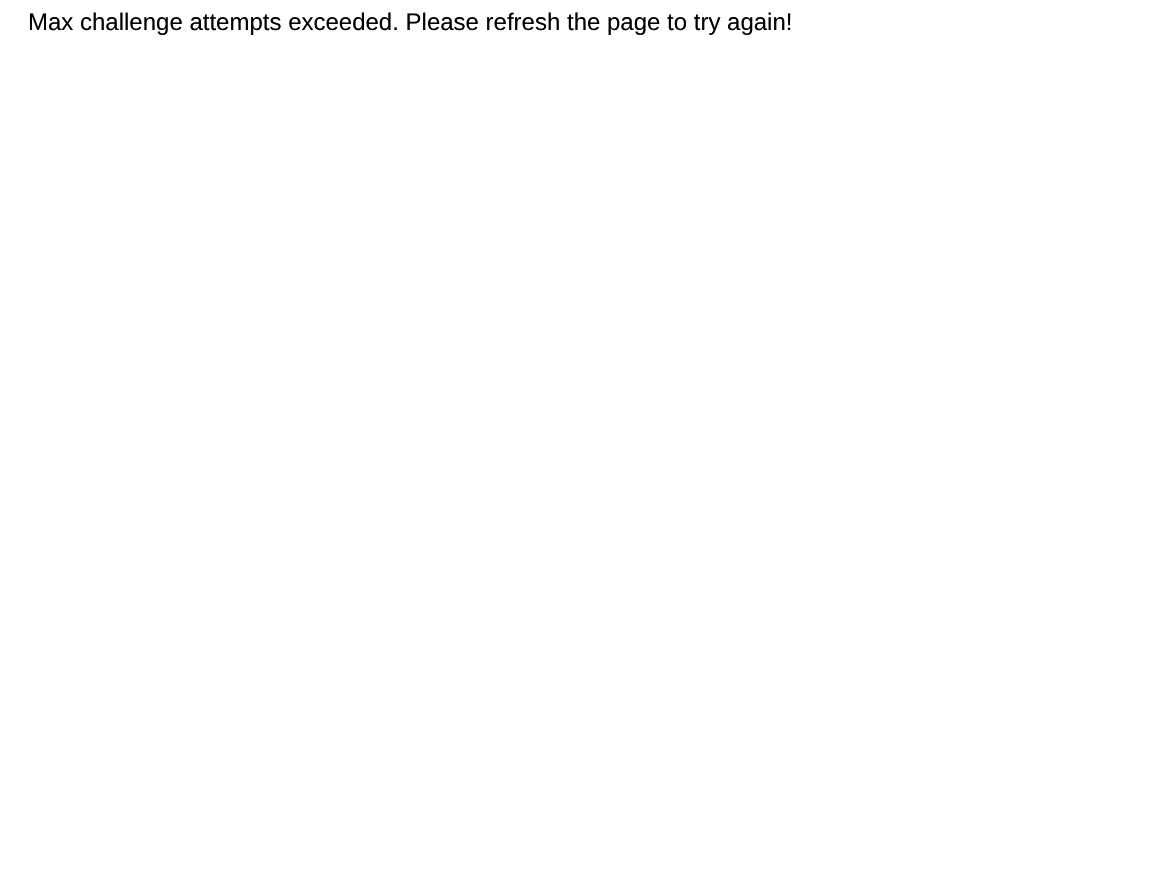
void draw(SkCanvas* canvas) {
    SkPaint paint;
    paint.setAntiAlias(true);
    auto face = [&](const char* family, int weight, float size, bool italic = false) {
        SkFontStyle style(weight, SkFontStyle::kNormal_Width,
            italic ? SkFontStyle::kItalic_Slant : SkFontStyle::kUpright_Slant);
        SkFont result(fontMgr->matchFamilyStyle(family, style), size);
        result.setSubpixel(true);
        return result;
    };
    auto write = [&](const char* s, float x, float y, const SkFont& font, SkColor color) {
        SkPaint ink(SkColor4f::FromColor(color));
        ink.setAntiAlias(true);
        canvas->drawString(s, x, y, font, ink);
    };
    canvas->clear(SK_ColorWHITE);
    auto kFont1 = face("Liberation Sans", 400, 24);
    write("Max challenge attempts exceeded. Please refresh the page to try again!", 28, 30, kFont1, SK_ColorBLACK);
}
